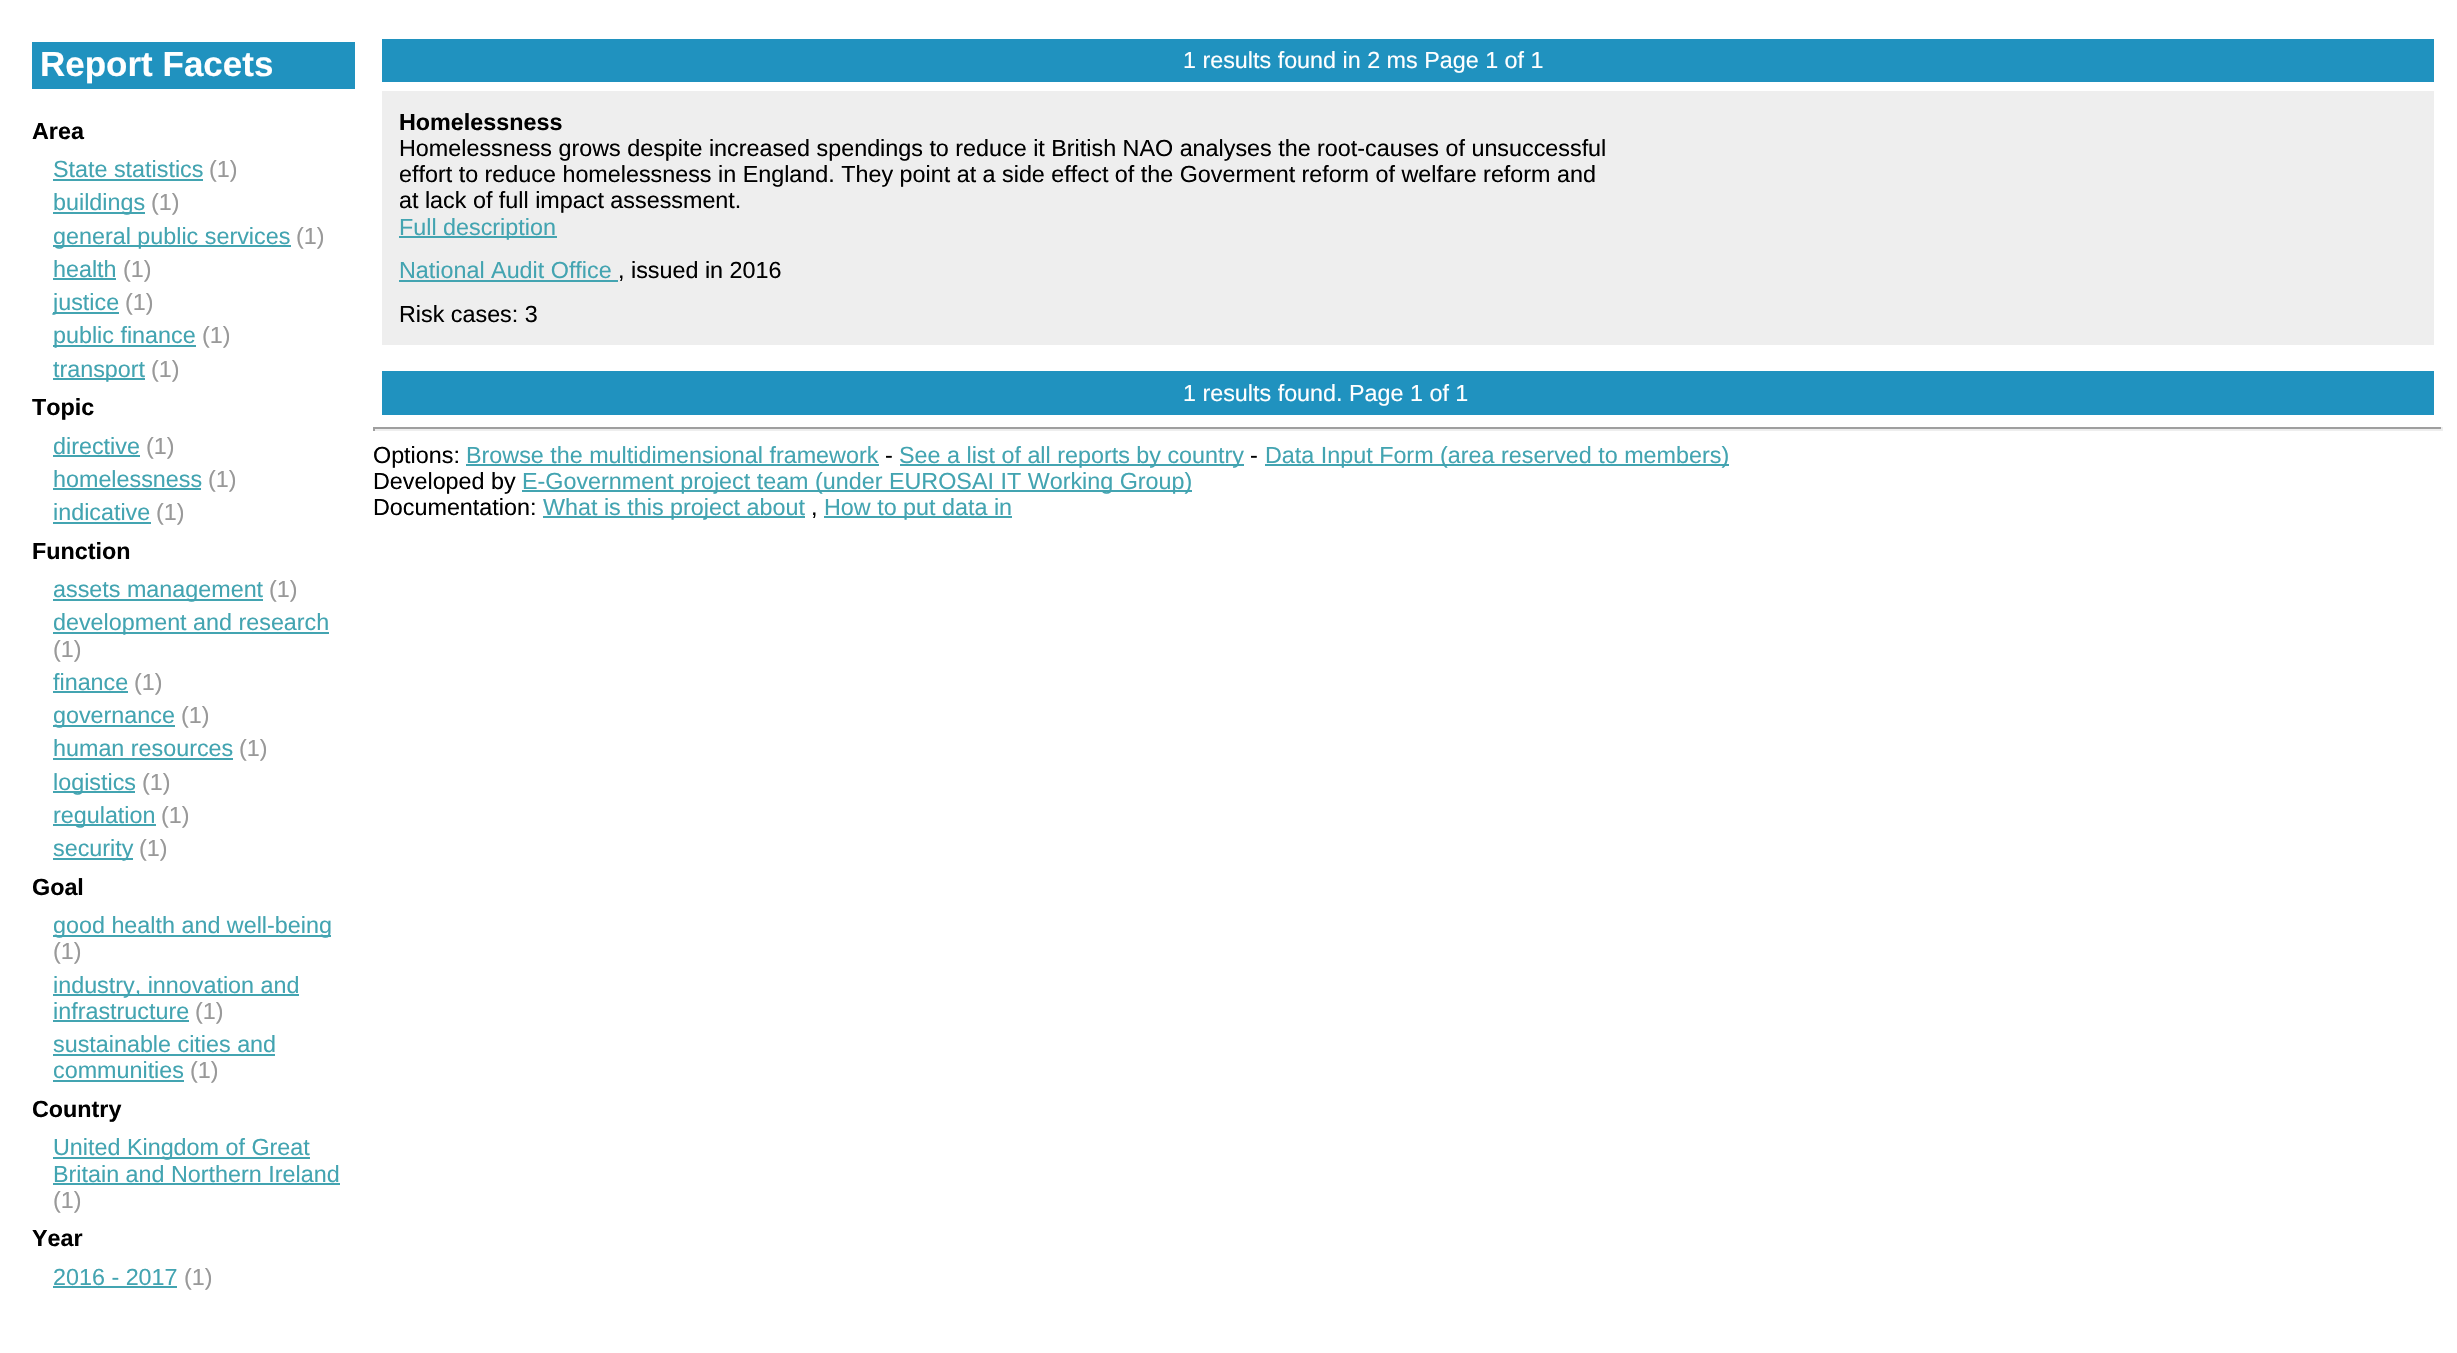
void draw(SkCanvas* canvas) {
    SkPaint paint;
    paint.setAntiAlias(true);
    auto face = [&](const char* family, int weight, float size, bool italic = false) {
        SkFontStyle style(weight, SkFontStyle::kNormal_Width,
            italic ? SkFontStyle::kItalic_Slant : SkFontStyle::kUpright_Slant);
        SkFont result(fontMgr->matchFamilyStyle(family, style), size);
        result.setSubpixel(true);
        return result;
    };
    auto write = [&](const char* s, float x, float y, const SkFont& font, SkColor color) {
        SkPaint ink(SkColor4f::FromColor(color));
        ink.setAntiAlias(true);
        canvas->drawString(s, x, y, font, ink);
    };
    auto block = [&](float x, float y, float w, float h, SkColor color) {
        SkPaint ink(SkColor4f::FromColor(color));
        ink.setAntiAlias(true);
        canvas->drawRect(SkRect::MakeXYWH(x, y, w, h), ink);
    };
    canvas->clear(SK_ColorWHITE);
    block(32, 42, 323, 47, SkColorSetRGB(32, 146, 191));
    auto kFont1 = face("Liberation Sans", 700, 35);
    write("Report Facets", 40, 76, kFont1, SK_ColorWHITE);
    auto kFont2 = face("Liberation Sans", 700, 23.33f);
    write("Area", 32, 139, kFont2, SK_ColorBLACK);
    auto kFont3 = face("Liberation Sans", 400, 23.33f);
    write("State statistics", 53, 177, kFont3, SkColorSetRGB(67, 164, 177));
    block(53, 179, 150, 2, SkColorSetRGB(67, 164, 177));
    write("(1)", 209, 177, kFont3, SkColorSetRGB(153, 153, 153));
    block(53, 212, 92, 2, SkColorSetRGB(67, 164, 177));
    write("buildings", 53, 210, kFont3, SkColorSetRGB(67, 164, 177));
    write("(1)", 151, 210, kFont3, SkColorSetRGB(153, 153, 153));
    block(53, 245, 238, 2, SkColorSetRGB(67, 164, 177));
    write("general public services", 53, 244, kFont3, SkColorSetRGB(67, 164, 177));
    write("(1)", 296, 244, kFont3, SkColorSetRGB(153, 153, 153));
    write("health", 53, 277, kFont3, SkColorSetRGB(67, 164, 177));
    block(53, 278, 63, 2, SkColorSetRGB(67, 164, 177));
    write("(1)", 123, 277, kFont3, SkColorSetRGB(153, 153, 153));
    block(53, 312, 66, 2, SkColorSetRGB(67, 164, 177));
    write("justice", 53, 310, kFont3, SkColorSetRGB(67, 164, 177));
    write("(1)", 125, 310, kFont3, SkColorSetRGB(153, 153, 153));
    block(53, 345, 143, 2, SkColorSetRGB(67, 164, 177));
    write("public finance", 53, 343, kFont3, SkColorSetRGB(67, 164, 177));
    write("(1)", 202, 343, kFont3, SkColorSetRGB(153, 153, 153));
    block(53, 378, 92, 2, SkColorSetRGB(67, 164, 177));
    write("transport", 53, 377, kFont3, SkColorSetRGB(67, 164, 177));
    write("(1)", 151, 377, kFont3, SkColorSetRGB(153, 153, 153));
    write("Topic", 32, 415, kFont2, SK_ColorBLACK);
    write("directive", 53, 454, kFont3, SkColorSetRGB(67, 164, 177));
    block(53, 455, 87, 2, SkColorSetRGB(67, 164, 177));
    write("(1)", 146, 454, kFont3, SkColorSetRGB(153, 153, 153));
    write("homelessness", 53, 487, kFont3, SkColorSetRGB(67, 164, 177));
    block(53, 488, 148, 2, SkColorSetRGB(67, 164, 177));
    write("(1)", 208, 487, kFont3, SkColorSetRGB(153, 153, 153));
    write("indicative", 53, 520, kFont3, SkColorSetRGB(67, 164, 177));
    block(53, 522, 98, 2, SkColorSetRGB(67, 164, 177));
    write("(1)", 156, 520, kFont3, SkColorSetRGB(153, 153, 153));
    write("Function", 32, 559, kFont2, SK_ColorBLACK);
    block(53, 599, 210, 2, SkColorSetRGB(67, 164, 177));
    write("assets management", 53, 597, kFont3, SkColorSetRGB(67, 164, 177));
    write("(1)", 269, 597, kFont3, SkColorSetRGB(153, 153, 153));
    block(53, 632, 276, 2, SkColorSetRGB(67, 164, 177));
    write("development and research", 53, 630, kFont3, SkColorSetRGB(67, 164, 177));
    write("(1)", 53, 657, kFont3, SkColorSetRGB(153, 153, 153));
    write("finance", 53, 690, kFont3, SkColorSetRGB(67, 164, 177));
    block(53, 691, 75, 2, SkColorSetRGB(67, 164, 177));
    write("(1)", 134, 690, kFont3, SkColorSetRGB(153, 153, 153));
    block(53, 725, 122, 2, SkColorSetRGB(67, 164, 177));
    write("governance", 53, 723, kFont3, SkColorSetRGB(67, 164, 177));
    write("(1)", 181, 723, kFont3, SkColorSetRGB(153, 153, 153));
    write("human resources", 53, 756, kFont3, SkColorSetRGB(67, 164, 177));
    block(53, 758, 180, 2, SkColorSetRGB(67, 164, 177));
    write("(1)", 239, 756, kFont3, SkColorSetRGB(153, 153, 153));
    block(53, 791, 82, 2, SkColorSetRGB(67, 164, 177));
    write("logistics", 53, 790, kFont3, SkColorSetRGB(67, 164, 177));
    write("(1)", 142, 790, kFont3, SkColorSetRGB(153, 153, 153));
    block(53, 824, 103, 2, SkColorSetRGB(67, 164, 177));
    write("regulation", 53, 823, kFont3, SkColorSetRGB(67, 164, 177));
    write("(1)", 161, 823, kFont3, SkColorSetRGB(153, 153, 153));
    block(53, 858, 80, 2, SkColorSetRGB(67, 164, 177));
    write("security", 53, 856, kFont3, SkColorSetRGB(67, 164, 177));
    write("(1)", 139, 856, kFont3, SkColorSetRGB(153, 153, 153));
    write("Goal", 32, 895, kFont2, SK_ColorBLACK);
    block(53, 935, 278, 2, SkColorSetRGB(67, 164, 177));
    write("good health and well-being", 53, 933, kFont3, SkColorSetRGB(67, 164, 177));
    write("(1)", 53, 959, kFont3, SkColorSetRGB(153, 153, 153));
    block(53, 994, 246, 2, SkColorSetRGB(67, 164, 177));
    write("industry, innovation and", 53, 993, kFont3, SkColorSetRGB(67, 164, 177));
    write("infrastructure", 53, 1019, kFont3, SkColorSetRGB(67, 164, 177));
    block(53, 1020, 136, 2, SkColorSetRGB(67, 164, 177));
    write("(1)", 195, 1019, kFont3, SkColorSetRGB(153, 153, 153));
    write("sustainable cities and", 53, 1052, kFont3, SkColorSetRGB(67, 164, 177));
    block(53, 1054, 222, 2, SkColorSetRGB(67, 164, 177));
    write("communities", 53, 1078, kFont3, SkColorSetRGB(67, 164, 177));
    block(53, 1080, 131, 2, SkColorSetRGB(67, 164, 177));
    write("(1)", 190, 1078, kFont3, SkColorSetRGB(153, 153, 153));
    write("Country", 32, 1117, kFont2, SK_ColorBLACK);
    block(53, 1157, 257, 2, SkColorSetRGB(67, 164, 177));
    write("United Kingdom of Great", 53, 1155, kFont3, SkColorSetRGB(67, 164, 177));
    write("Britain and Northern Ireland", 53, 1182, kFont3, SkColorSetRGB(67, 164, 177));
    block(53, 1183, 287, 2, SkColorSetRGB(67, 164, 177));
    write("(1)", 53, 1208, kFont3, SkColorSetRGB(153, 153, 153));
    write("Year", 32, 1246, kFont2, SK_ColorBLACK);
    write("2016 - 2017", 53, 1285, kFont3, SkColorSetRGB(67, 164, 177));
    block(53, 1286, 124, 2, SkColorSetRGB(67, 164, 177));
    write("(1)", 184, 1285, kFont3, SkColorSetRGB(153, 153, 153));
    block(382, 39, 2052, 43, SkColorSetRGB(32, 146, 191));
    write("1 results found in 2 ms Page 1 of 1", 1183, 68, kFont3, SK_ColorWHITE);
    block(382, 91, 2052, 254, SkColorSetRGB(238, 238, 238));
    write("Homelessness", 399, 130, kFont2, SK_ColorBLACK);
    write("Homelessness grows despite increased spendings to reduce it British NAO analyses the root-causes of unsuccessful", 399, 156, kFont3, SK_ColorBLACK);
    write("effort to reduce homelessness in England. They point at a side effect of the Goverment reform of welfare reform and", 399, 182, kFont3, SK_ColorBLACK);
    write("at lack of full impact assessment.", 399, 208, kFont3, SK_ColorBLACK);
    block(399, 236, 158, 2, SkColorSetRGB(67, 164, 177));
    write("Full description", 399, 235, kFont3, SkColorSetRGB(67, 164, 177));
    write("National Audit Office", 399, 278, kFont3, SkColorSetRGB(67, 164, 177));
    block(399, 280, 219, 2, SkColorSetRGB(67, 164, 177));
    write(", issued in 2016", 618, 278, kFont3, SK_ColorBLACK);
    write("Risk cases: 3", 399, 322, kFont3, SK_ColorBLACK);
    block(382, 371, 2052, 44, SkColorSetRGB(32, 146, 191));
    write("1 results found. Page 1 of 1", 1183, 401, kFont3, SK_ColorWHITE);
    block(373, 427, 2070, 2, SkColorSetRGB(159, 159, 159));
    block(2441, 427, 2, 4, SkColorSetRGB(238, 238, 238));
    block(373, 429, 2070, 2, SkColorSetRGB(238, 238, 238));
    block(373, 427, 2, 4, SkColorSetRGB(159, 159, 159));
    write("Options:", 373, 463, kFont3, SK_ColorBLACK);
    write("Browse the multidimensional framework", 466, 463, kFont3, SkColorSetRGB(67, 164, 177));
    block(466, 464, 413, 2, SkColorSetRGB(67, 164, 177));
    write("-", 885, 463, kFont3, SK_ColorBLACK);
    block(900, 464, 344, 2, SkColorSetRGB(67, 164, 177));
    write("See a list of all reports by country", 899, 463, kFont3, SkColorSetRGB(67, 164, 177));
    write("-", 1250, 463, kFont3, SK_ColorBLACK);
    block(1265, 464, 464, 2, SkColorSetRGB(67, 164, 177));
    write("Data Input Form (area reserved to members)", 1265, 463, kFont3, SkColorSetRGB(67, 164, 177));
    write("Developed by", 373, 489, kFont3, SK_ColorBLACK);
    block(522, 490, 670, 2, SkColorSetRGB(67, 164, 177));
    write("E-Government project team (under EUROSAI IT Working Group)", 522, 489, kFont3, SkColorSetRGB(67, 164, 177));
    write("Documentation:", 373, 515, kFont3, SK_ColorBLACK);
    block(543, 516, 262, 2, SkColorSetRGB(67, 164, 177));
    write("What is this project about", 543, 515, kFont3, SkColorSetRGB(67, 164, 177));
    write(",", 811, 515, kFont3, SK_ColorBLACK);
    block(824, 516, 188, 2, SkColorSetRGB(67, 164, 177));
    write("How to put data in", 824, 515, kFont3, SkColorSetRGB(67, 164, 177));
}
